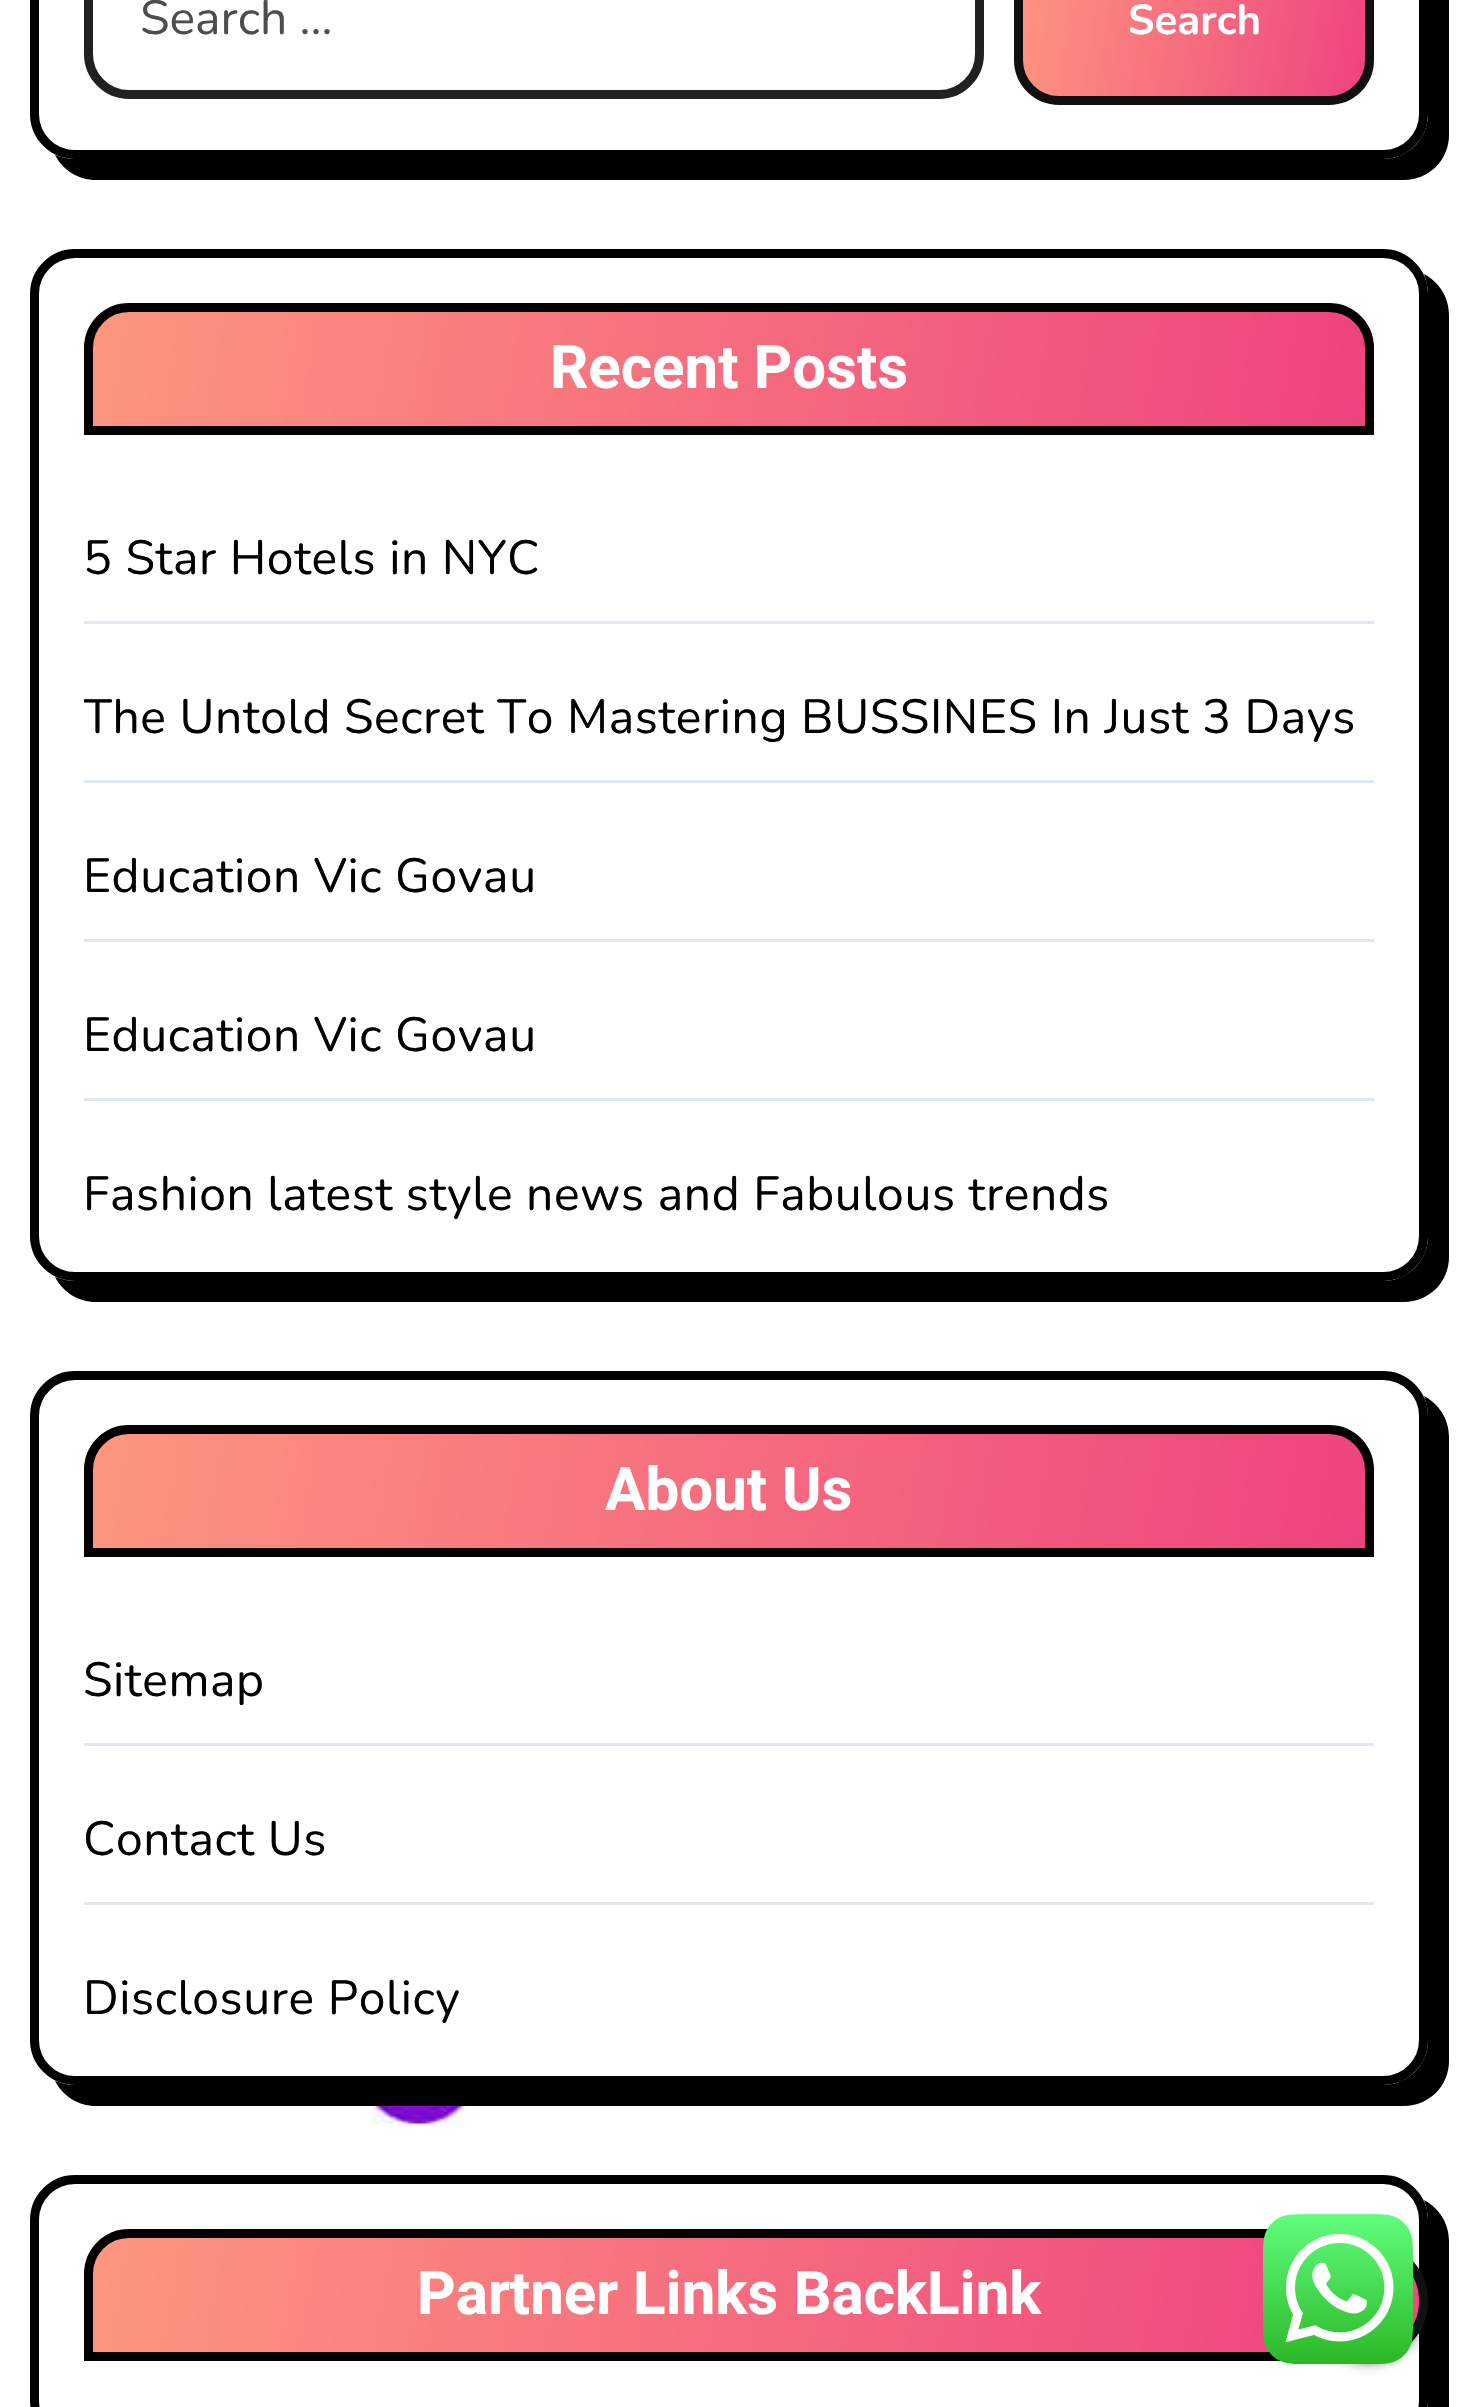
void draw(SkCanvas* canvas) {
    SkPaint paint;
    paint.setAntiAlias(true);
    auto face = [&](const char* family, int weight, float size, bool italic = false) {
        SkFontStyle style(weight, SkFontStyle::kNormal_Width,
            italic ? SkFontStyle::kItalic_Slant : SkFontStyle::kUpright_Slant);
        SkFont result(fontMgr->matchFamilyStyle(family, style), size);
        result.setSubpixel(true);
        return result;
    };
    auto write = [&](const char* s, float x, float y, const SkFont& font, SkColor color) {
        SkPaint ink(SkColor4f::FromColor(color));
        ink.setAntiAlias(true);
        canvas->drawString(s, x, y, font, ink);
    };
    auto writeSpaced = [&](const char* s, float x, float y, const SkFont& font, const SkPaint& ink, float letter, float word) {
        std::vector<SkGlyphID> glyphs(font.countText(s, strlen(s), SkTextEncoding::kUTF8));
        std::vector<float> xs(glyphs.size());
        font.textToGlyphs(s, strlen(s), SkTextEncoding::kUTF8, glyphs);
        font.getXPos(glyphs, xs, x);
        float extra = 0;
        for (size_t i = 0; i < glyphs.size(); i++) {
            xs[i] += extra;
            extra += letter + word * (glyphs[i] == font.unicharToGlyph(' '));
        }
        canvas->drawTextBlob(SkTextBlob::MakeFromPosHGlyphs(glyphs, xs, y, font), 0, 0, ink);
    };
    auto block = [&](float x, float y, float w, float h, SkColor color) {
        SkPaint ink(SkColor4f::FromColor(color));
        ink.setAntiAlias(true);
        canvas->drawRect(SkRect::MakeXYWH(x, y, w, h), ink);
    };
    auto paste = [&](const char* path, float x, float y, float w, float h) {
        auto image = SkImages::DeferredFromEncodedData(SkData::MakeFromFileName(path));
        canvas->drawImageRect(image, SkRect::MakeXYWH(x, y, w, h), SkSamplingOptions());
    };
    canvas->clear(SK_ColorWHITE);
    paste("pic1.png", 247, 150, 1163, 2034);
    paint.setColor(SK_ColorBLACK);
    canvas->drawPath(SkPathBuilder().moveTo(55, 155).cubicTo(63, 170, 78, 180, 96, 180).lineTo(1404, 180).cubicTo(1429, 180, 1449, 160, 1449, 135).lineTo(1449, -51).cubicTo(1449, -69, 1439, -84, 1424, -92).cubicTo(1426, -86, 1428, -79, 1428, -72).lineTo(1428, 114).cubicTo(1428, 139, 1408, 159, 1383, 159).lineTo(75, 159).cubicTo(68, 159, 61, 157, 55, 155).close().detach(), paint);
    paint.setColor(SK_ColorWHITE);
    canvas->drawRoundRect(SkRect::MakeXYWH(34.5f, -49.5f, 1389, 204), 40.5f, 40.5f, paint);
    paint.setStyle(SkPaint::kStroke_Style);
    paint.setStrokeWidth(9);
    paint.setColor(SK_ColorBLACK);
    canvas->drawRoundRect(SkRect::MakeXYWH(34.5f, -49.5f, 1389, 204), 40.5f, 40.5f, paint);
    paint.setColor(SkColorSetRGB(33, 33, 33));
    canvas->drawRoundRect(SkRect::MakeXYWH(88.5f, -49.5f, 891, 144), 40.5f, 40.5f, paint);
    auto kFont1 = face("Nunito", 200, 48);
    write("Search …", 140, 34, kFont1, SkColorSetRGB(77, 77, 77));
    canvas->save();
    canvas->clipPath(SkPathBuilder().moveTo(1059, -63).lineTo(1329, -63).cubicTo(1354, -63, 1374, -43, 1374, -18).lineTo(1374, 60).cubicTo(1374, 85, 1354, 105, 1329, 105).lineTo(1059, 105).cubicTo(1034, 105, 1014, 85, 1014, 60).lineTo(1014, -18).cubicTo(1014, -43, 1034, -63, 1059, -63).close().detach(), true);
    paint.setStyle(SkPaint::kFill_Style);
    {
        const SkColor colors[] = {SkColorSetRGB(253, 150, 127), SkColorSetRGB(238, 67, 127)};
        const float stops[] = {0, 1};
        const SkPoint ends[] = {{1015, -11}, {1373, 53}};
        paint.setShader(SkGradientShader::MakeLinear(ends, colors, stops, 2, SkTileMode::kClamp));
        paint.setAlpha(255);
    }
    canvas->drawRect(SkRect::MakeXYWH(1023, 0, 342, 96), paint);
    canvas->restore();
    paint.setStyle(SkPaint::kStroke_Style);
    paint.setShader(nullptr);
    paint.setColor(SkColorSetRGB(15, 16, 18));
    canvas->drawRoundRect(SkRect::MakeXYWH(1018.5f, -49.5f, 351, 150), 40.5f, 40.5f, paint);
    auto kFont2 = face("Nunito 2", 200, 42);
    write("Search", 1128, 34, kFont2, SK_ColorWHITE);
    paint.setStyle(SkPaint::kFill_Style);
    paint.setColor(SK_ColorBLACK);
    canvas->drawPath(SkPathBuilder().moveTo(55, 1277).cubicTo(63, 1292, 78, 1302, 96, 1302).lineTo(1404, 1302).cubicTo(1429, 1302, 1449, 1282, 1449, 1257).lineTo(1449, 315).cubicTo(1449, 297, 1439, 282, 1424, 274).cubicTo(1426, 280, 1428, 287, 1428, 294).lineTo(1428, 1236).cubicTo(1428, 1261, 1408, 1281, 1383, 1281).lineTo(75, 1281).cubicTo(68, 1281, 61, 1279, 55, 1277).close().detach(), paint);
    paint.setColor(SK_ColorWHITE);
    canvas->drawRoundRect(SkRect::MakeXYWH(34.5f, 253.5f, 1389, 1023), 40.5f, 40.5f, paint);
    paint.setStyle(SkPaint::kStroke_Style);
    paint.setColor(SK_ColorBLACK);
    canvas->drawRoundRect(SkRect::MakeXYWH(34.5f, 253.5f, 1389, 1023), 40.5f, 40.5f, paint);
    canvas->save();
    canvas->clipPath(SkPathBuilder().moveTo(129, 303).lineTo(1329, 303).cubicTo(1354, 303, 1374, 323, 1374, 348).lineTo(1374, 435).lineTo(84, 435).lineTo(84, 348).cubicTo(84, 323, 104, 303, 129, 303).close().detach(), true);
    paint.setStyle(SkPaint::kFill_Style);
    {
        const SkColor colors[] = {SkColorSetRGB(253, 150, 127), SkColorSetRGB(238, 67, 127)};
        const float stops[] = {0, 1};
        const SkPoint ends[] = {{102, 259}, {1356, 479}};
        paint.setShader(SkGradientShader::MakeLinear(ends, colors, stops, 2, SkTileMode::kClamp));
        paint.setAlpha(255);
    }
    canvas->drawRect(SkRect::MakeXYWH(93, 312, 1272, 114), paint);
    canvas->restore();
    paint.setStyle(SkPaint::kStroke_Style);
    paint.setShader(nullptr);
    paint.setColor(SK_ColorBLACK);
    canvas->drawPath(SkPathBuilder().moveTo(129, 307.5f).lineTo(1329, 307.5f).cubicTo(1351.5f, 307.5f, 1369.5f, 325.5f, 1369.5f, 348).lineTo(1369.5f, 430.5f).lineTo(88.5f, 430.5f).lineTo(88.5f, 348).cubicTo(88.5f, 325.5f, 106.5f, 307.5f, 129, 307.5f).close().detach(), paint);
    auto kFont3 = face("Heebo", 700, 60);
    write("Recent Posts", 550, 388, kFont3, SK_ColorWHITE);
    block(84, 621, 1290, 3, SkColorSetRGB(226, 232, 240));
    paint.setStyle(SkPaint::kFill_Style);
    writeSpaced("5 Star Hotels in NYC", 83, 574, kFont1, paint, 0.6f, 0);
    block(84, 780, 1290, 3, SkColorSetRGB(226, 232, 240));
    canvas->save();
    canvas->clipRect(SkRect::MakeXYWH(84, 654, 1290, 126));
    writeSpaced("The Untold Secret To Mastering BUSSINES In Just 3 Days", 83, 733, kFont1, paint, 0.6f, 0);
    canvas->restore();
    block(84, 939, 1290, 3, SkColorSetRGB(226, 232, 240));
    writeSpaced("Education Vic Govau", 83, 892, kFont1, paint, 0.6f, 0);
    block(84, 1098, 1290, 3, SkColorSetRGB(226, 232, 240));
    writeSpaced("Education Vic Govau", 83, 1051, kFont1, paint, 0.6f, 0);
    writeSpaced("Fashion latest style news and Fabulous trends", 83, 1210, kFont1, paint, 0.6f, 0);
    canvas->drawPath(SkPathBuilder().moveTo(55, 2081).cubicTo(63, 2096, 78, 2106, 96, 2106).lineTo(1404, 2106).cubicTo(1429, 2106, 1449, 2086, 1449, 2061).lineTo(1449, 1437).cubicTo(1449, 1419, 1439, 1404, 1424, 1396).cubicTo(1426, 1402, 1428, 1409, 1428, 1416).lineTo(1428, 2040).cubicTo(1428, 2065, 1408, 2085, 1383, 2085).lineTo(75, 2085).cubicTo(68, 2085, 61, 2083, 55, 2081).close().detach(), paint);
    paint.setColor(SK_ColorWHITE);
    canvas->drawRoundRect(SkRect::MakeXYWH(34.5f, 1375.5f, 1389, 705), 40.5f, 40.5f, paint);
    paint.setStyle(SkPaint::kStroke_Style);
    paint.setColor(SK_ColorBLACK);
    canvas->drawRoundRect(SkRect::MakeXYWH(34.5f, 1375.5f, 1389, 705), 40.5f, 40.5f, paint);
    canvas->save();
    canvas->clipPath(SkPathBuilder().moveTo(129, 1425).lineTo(1329, 1425).cubicTo(1354, 1425, 1374, 1445, 1374, 1470).lineTo(1374, 1557).lineTo(84, 1557).lineTo(84, 1470).cubicTo(84, 1445, 104, 1425, 129, 1425).close().detach(), true);
    paint.setStyle(SkPaint::kFill_Style);
    {
        const SkColor colors[] = {SkColorSetRGB(253, 150, 127), SkColorSetRGB(238, 67, 127)};
        const float stops[] = {0, 1};
        const SkPoint ends[] = {{102, 1381}, {1356, 1601}};
        paint.setShader(SkGradientShader::MakeLinear(ends, colors, stops, 2, SkTileMode::kClamp));
        paint.setAlpha(255);
    }
    canvas->drawRect(SkRect::MakeXYWH(93, 1434, 1272, 114), paint);
    canvas->restore();
    paint.setStyle(SkPaint::kStroke_Style);
    paint.setShader(nullptr);
    paint.setColor(SK_ColorBLACK);
    canvas->drawPath(SkPathBuilder().moveTo(129, 1429.5f).lineTo(1329, 1429.5f).cubicTo(1351.5f, 1429.5f, 1369.5f, 1447.5f, 1369.5f, 1470).lineTo(1369.5f, 1552.5f).lineTo(88.5f, 1552.5f).lineTo(88.5f, 1470).cubicTo(88.5f, 1447.5f, 106.5f, 1429.5f, 129, 1429.5f).close().detach(), paint);
    write("About Us", 605, 1510, kFont3, SK_ColorWHITE);
    block(84, 1743, 1290, 3, SkColorSetRGB(226, 232, 240));
    paint.setStyle(SkPaint::kFill_Style);
    writeSpaced("Sitemap", 83, 1696, kFont1, paint, 0.6f, 0);
    block(84, 1902, 1290, 3, SkColorSetRGB(226, 232, 240));
    writeSpaced("Contact Us", 83, 1855, kFont1, paint, 0.6f, 0);
    writeSpaced("Disclosure Policy", 83, 2014, kFont1, paint, 0.6f, 0);
    canvas->drawPath(SkPathBuilder().moveTo(55, 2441).cubicTo(63, 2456, 78, 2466, 96, 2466).lineTo(1404, 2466).cubicTo(1429, 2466, 1449, 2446, 1449, 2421).lineTo(1449, 2241).cubicTo(1449, 2223, 1439, 2208, 1424, 2200).cubicTo(1426, 2206, 1428, 2213, 1428, 2220).lineTo(1428, 2400).cubicTo(1428, 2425, 1408, 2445, 1383, 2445).lineTo(75, 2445).cubicTo(68, 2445, 61, 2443, 55, 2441).close().detach(), paint);
    paint.setColor(SK_ColorWHITE);
    canvas->drawRoundRect(SkRect::MakeXYWH(34.5f, 2179.5f, 1389, 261), 40.5f, 40.5f, paint);
    paint.setStyle(SkPaint::kStroke_Style);
    paint.setColor(SK_ColorBLACK);
    canvas->drawRoundRect(SkRect::MakeXYWH(34.5f, 2179.5f, 1389, 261), 40.5f, 40.5f, paint);
    canvas->save();
    canvas->clipPath(SkPathBuilder().moveTo(129, 2229).lineTo(1329, 2229).cubicTo(1354, 2229, 1374, 2249, 1374, 2274).lineTo(1374, 2361).lineTo(84, 2361).lineTo(84, 2274).cubicTo(84, 2249, 104, 2229, 129, 2229).close().detach(), true);
    paint.setStyle(SkPaint::kFill_Style);
    {
        const SkColor colors[] = {SkColorSetRGB(253, 150, 127), SkColorSetRGB(238, 67, 127)};
        const float stops[] = {0, 1};
        const SkPoint ends[] = {{102, 2185}, {1356, 2405}};
        paint.setShader(SkGradientShader::MakeLinear(ends, colors, stops, 2, SkTileMode::kClamp));
        paint.setAlpha(255);
    }
    canvas->drawRect(SkRect::MakeXYWH(93, 2238, 1177, 114), paint);
    canvas->restore();
    paint.setStyle(SkPaint::kStroke_Style);
    paint.setShader(nullptr);
    paint.setColor(SK_ColorBLACK);
    canvas->drawPath(SkPathBuilder().moveTo(129, 2233.5f).lineTo(1329, 2233.5f).cubicTo(1351.5f, 2233.5f, 1369.5f, 2251.5f, 1369.5f, 2274).lineTo(1369.5f, 2356.5f).lineTo(88.5f, 2356.5f).lineTo(88.5f, 2274).cubicTo(88.5f, 2251.5f, 106.5f, 2233.5f, 129, 2233.5f).close().detach(), paint);
    write("Partner Links BackLink", 417, 2314, kFont3, SK_ColorWHITE);
    paint.setStyle(SkPaint::kFill_Style);
    paint.setColor(SkColorSetARGB(31, 0, 0, 0));
    paint.setMaskFilter(SkMaskFilter::MakeBlur(kNormal_SkBlurStyle, 7.5f));
    canvas->drawRoundRect(SkRect::MakeXYWH(1308, 2244, 120, 120), 60, 60, paint);
    paint.setMaskFilter(nullptr);
    paint.setColor(SkColorSetARGB(51, 0, 0, 0));
    paint.setMaskFilter(SkMaskFilter::MakeBlur(kNormal_SkBlurStyle, 1.5f));
    canvas->drawRoundRect(SkRect::MakeXYWH(1314, 2256, 108, 108), 54, 54, paint);
    paint.setMaskFilter(nullptr);
    paint.setColor(SkColorSetARGB(36, 0, 0, 0));
    paint.setMaskFilter(SkMaskFilter::MakeBlur(kNormal_SkBlurStyle, 3));
    canvas->drawRoundRect(SkRect::MakeXYWH(1308, 2247, 120, 120), 60, 60, paint);
    paint.setMaskFilter(nullptr);
    canvas->save();
    canvas->clipPath(SkPathBuilder().moveTo(1368, 2241).cubicTo(1401, 2241, 1428, 2268, 1428, 2301).cubicTo(1428, 2334, 1401, 2361, 1368, 2361).cubicTo(1335, 2361, 1308, 2334, 1308, 2301).cubicTo(1308, 2268, 1335, 2241, 1368, 2241).close().detach(), true);
    {
        const SkColor colors[] = {SkColorSetRGB(253, 150, 127), SkColorSetRGB(238, 67, 127)};
        const float stops[] = {0, 1};
        const SkPoint ends[] = {{1310, 2291}, {1426, 2311}};
        paint.setShader(SkGradientShader::MakeLinear(ends, colors, stops, 2, SkTileMode::kClamp));
        paint.setAlpha(255);
    }
    canvas->drawRect(SkRect::MakeXYWH(1411, 2261, 8, 82), paint);
    canvas->restore();
    paint.setStyle(SkPaint::kStroke_Style);
    paint.setShader(nullptr);
    paint.setColor(SkColorSetRGB(15, 16, 18));
    canvas->drawCircle(1368, 2301, 55.5f, paint);
    paste("pic2.png", 1263, 2214, 150, 150);
}
